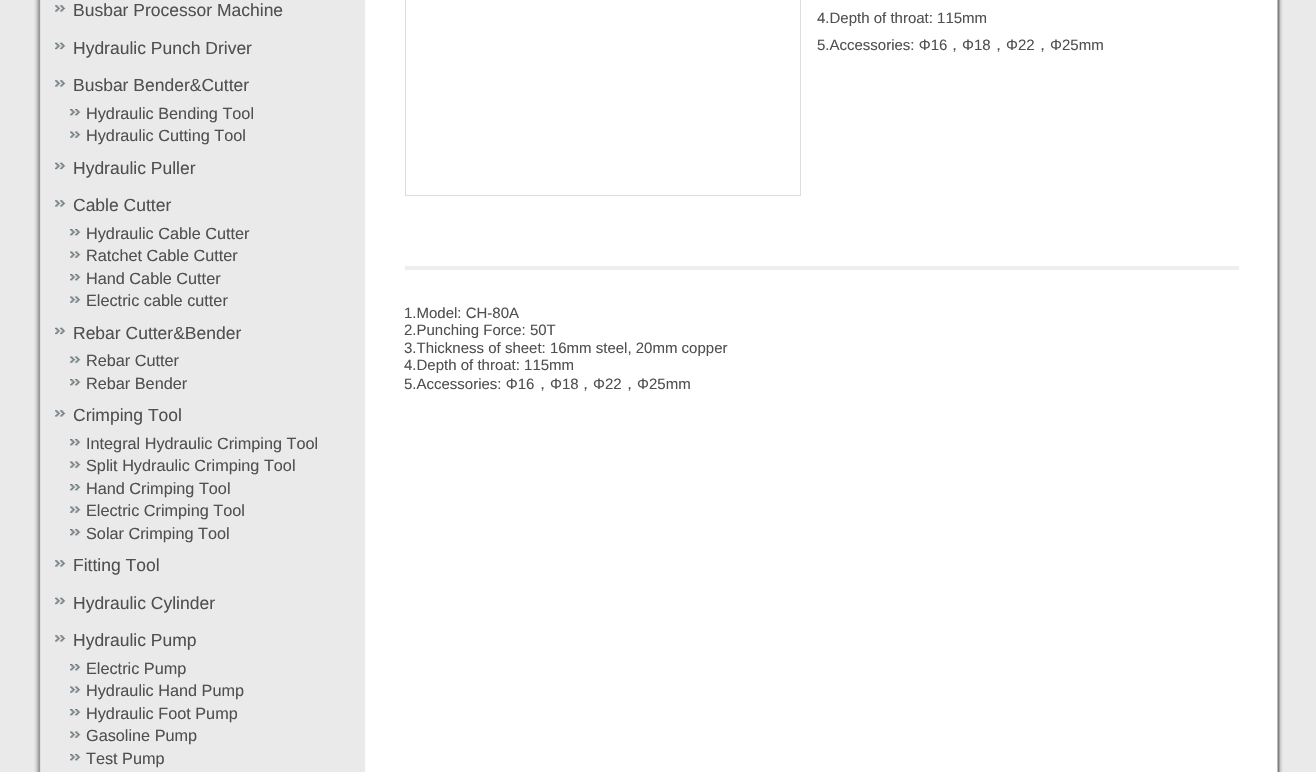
void draw(SkCanvas* canvas) {
    SkPaint paint;
    paint.setAntiAlias(true);
    auto face = [&](const char* family, int weight, float size, bool italic = false) {
        SkFontStyle style(weight, SkFontStyle::kNormal_Width,
            italic ? SkFontStyle::kItalic_Slant : SkFontStyle::kUpright_Slant);
        SkFont result(fontMgr->matchFamilyStyle(family, style), size);
        result.setSubpixel(true);
        return result;
    };
    auto write = [&](const char* s, float x, float y, const SkFont& font, SkColor color) {
        SkPaint ink(SkColor4f::FromColor(color));
        ink.setAntiAlias(true);
        canvas->drawString(s, x, y, font, ink);
    };
    auto block = [&](float x, float y, float w, float h, SkColor color) {
        SkPaint ink(SkColor4f::FromColor(color));
        ink.setAntiAlias(true);
        canvas->drawRect(SkRect::MakeXYWH(x, y, w, h), ink);
    };
    auto paste = [&](const char* path, float x, float y, float w, float h) {
        auto image = SkImages::DeferredFromEncodedData(SkData::MakeFromFileName(path));
        canvas->drawImageRect(image, SkRect::MakeXYWH(x, y, w, h), SkSamplingOptions());
    };
    canvas->clear(SkColorSetRGB(234, 234, 234));
    paste("pic1.png", 34, 0, 1249, 772);
    paste("pic2.png", 55, 5, 11, 7);
    auto kFont1 = face("Liberation Sans", 400, 17.5f);
    write("Busbar Processor Machine", 73, 16, kFont1, SkColorSetRGB(80, 80, 80));
    paste("pic3.png", 55, 42, 11, 8);
    write("Hydraulic Punch Driver", 73, 54, kFont1, SkColorSetRGB(80, 80, 80));
    paste("pic2.png", 55, 80, 11, 7);
    write("Busbar Bender&Cutter", 73, 91, kFont1, SkColorSetRGB(80, 80, 80));
    paste("pic4.png", 70, 109, 11, 7);
    auto kFont2 = face("Liberation Sans", 400, 16.25f);
    write("Hydraulic Bending Tool", 86, 119, kFont2, SkColorSetRGB(80, 80, 80));
    paste("pic5.png", 70, 131, 11, 7);
    write("Hydraulic Cutting Tool", 86, 141, kFont2, SkColorSetRGB(80, 80, 80));
    paste("pic3.png", 55, 162, 11, 8);
    write("Hydraulic Puller", 73, 174, kFont1, SkColorSetRGB(80, 80, 80));
    paste("pic2.png", 55, 200, 11, 7);
    write("Cable Cutter", 73, 211, kFont1, SkColorSetRGB(80, 80, 80));
    paste("pic4.png", 70, 229, 11, 7);
    write("Hydraulic Cable Cutter", 86, 239, kFont2, SkColorSetRGB(80, 80, 80));
    paste("pic5.png", 70, 251, 11, 7);
    write("Ratchet Cable Cutter", 86, 261, kFont2, SkColorSetRGB(80, 80, 80));
    paste("pic4.png", 70, 274, 11, 7);
    write("Hand Cable Cutter", 86, 284, kFont2, SkColorSetRGB(80, 80, 80));
    paste("pic5.png", 70, 296, 11, 7);
    write("Electric cable cutter", 86, 306, kFont2, SkColorSetRGB(80, 80, 80));
    paste("pic3.png", 55, 327, 11, 8);
    write("Rebar Cutter&Bender", 73, 339, kFont1, SkColorSetRGB(80, 80, 80));
    paste("pic5.png", 70, 356, 11, 7);
    write("Rebar Cutter", 86, 366, kFont2, SkColorSetRGB(80, 80, 80));
    paste("pic4.png", 70, 379, 11, 7);
    write("Rebar Bender", 86, 389, kFont2, SkColorSetRGB(80, 80, 80));
    paste("pic2.png", 55, 410, 11, 7);
    write("Crimping Tool", 73, 421, kFont1, SkColorSetRGB(80, 80, 80));
    paste("pic4.png", 70, 439, 11, 7);
    write("Integral Hydraulic Crimping Tool", 86, 449, kFont2, SkColorSetRGB(80, 80, 80));
    paste("pic5.png", 70, 461, 11, 7);
    write("Split Hydraulic Crimping Tool", 86, 471, kFont2, SkColorSetRGB(80, 80, 80));
    paste("pic4.png", 70, 484, 11, 7);
    write("Hand Crimping Tool", 86, 494, kFont2, SkColorSetRGB(80, 80, 80));
    paste("pic5.png", 70, 506, 11, 7);
    write("Electric Crimping Tool", 86, 516, kFont2, SkColorSetRGB(80, 80, 80));
    paste("pic4.png", 70, 529, 11, 7);
    write("Solar Crimping Tool", 86, 539, kFont2, SkColorSetRGB(80, 80, 80));
    paste("pic2.png", 55, 560, 11, 7);
    write("Fitting Tool", 73, 571, kFont1, SkColorSetRGB(80, 80, 80));
    paste("pic3.png", 55, 597, 11, 8);
    write("Hydraulic Cylinder", 73, 609, kFont1, SkColorSetRGB(80, 80, 80));
    paste("pic2.png", 55, 635, 11, 7);
    write("Hydraulic Pump", 73, 646, kFont1, SkColorSetRGB(80, 80, 80));
    paste("pic4.png", 70, 664, 11, 7);
    write("Electric Pump", 86, 674, kFont2, SkColorSetRGB(80, 80, 80));
    paste("pic5.png", 70, 686, 11, 7);
    write("Hydraulic Hand Pump", 86, 696, kFont2, SkColorSetRGB(80, 80, 80));
    paste("pic4.png", 70, 709, 11, 7);
    write("Hydraulic Foot Pump", 86, 719, kFont2, SkColorSetRGB(80, 80, 80));
    paste("pic5.png", 70, 731, 11, 7);
    write("Gasoline Pump", 86, 741, kFont2, SkColorSetRGB(80, 80, 80));
    paste("pic4.png", 70, 754, 11, 7);
    write("Test Pump", 86, 764, kFont2, SkColorSetRGB(80, 80, 80));
    paint.setStyle(SkPaint::kStroke_Style);
    paint.setStrokeWidth(1);
    paint.setColor(SkColorSetRGB(221, 221, 221));
    canvas->drawRect(SkRect::MakeXYWH(405.5f, -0.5f, 395, 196), paint);
    auto kFont3 = face("Liberation Sans", 400, 15);
    write("4.Depth of throat: 115mm", 817, 23, kFont3, SkColorSetRGB(80, 80, 80));
    write("5.Accessories: Φ16", 817, 50, kFont3, SkColorSetRGB(80, 80, 80));
    auto kFont4 = face("WenQuanYi Zen Hei", 500, 15);
    write("，", 947, 50, kFont4, SkColorSetRGB(80, 80, 80));
    write("Φ18", 962, 50, kFont3, SkColorSetRGB(80, 80, 80));
    write("，", 991, 50, kFont4, SkColorSetRGB(80, 80, 80));
    write("Φ22", 1006, 50, kFont3, SkColorSetRGB(80, 80, 80));
    write("，", 1035, 50, kFont4, SkColorSetRGB(80, 80, 80));
    write("Φ25mm", 1050, 50, kFont3, SkColorSetRGB(80, 80, 80));
    block(405, 266, 834, 4, SkColorSetRGB(238, 238, 238));
    write("1.Model: CH-80A", 404, 318, kFont3, SkColorSetRGB(80, 80, 80));
    write("2.Punching Force: 50T", 404, 335, kFont3, SkColorSetRGB(80, 80, 80));
    write("3.Thickness of sheet: 16mm steel, 20mm copper", 404, 353, kFont3, SkColorSetRGB(80, 80, 80));
    write("4.Depth of throat: 115mm", 404, 370, kFont3, SkColorSetRGB(80, 80, 80));
    write("5.Accessories: Φ16", 404, 389, kFont3, SkColorSetRGB(80, 80, 80));
    write("，", 535, 389, kFont4, SkColorSetRGB(80, 80, 80));
    write("Φ18", 550, 389, kFont3, SkColorSetRGB(80, 80, 80));
    write("，", 578, 389, kFont4, SkColorSetRGB(80, 80, 80));
    write("Φ22", 593, 389, kFont3, SkColorSetRGB(80, 80, 80));
    write("，", 622, 389, kFont4, SkColorSetRGB(80, 80, 80));
    write("Φ25mm", 637, 389, kFont3, SkColorSetRGB(80, 80, 80));
}
